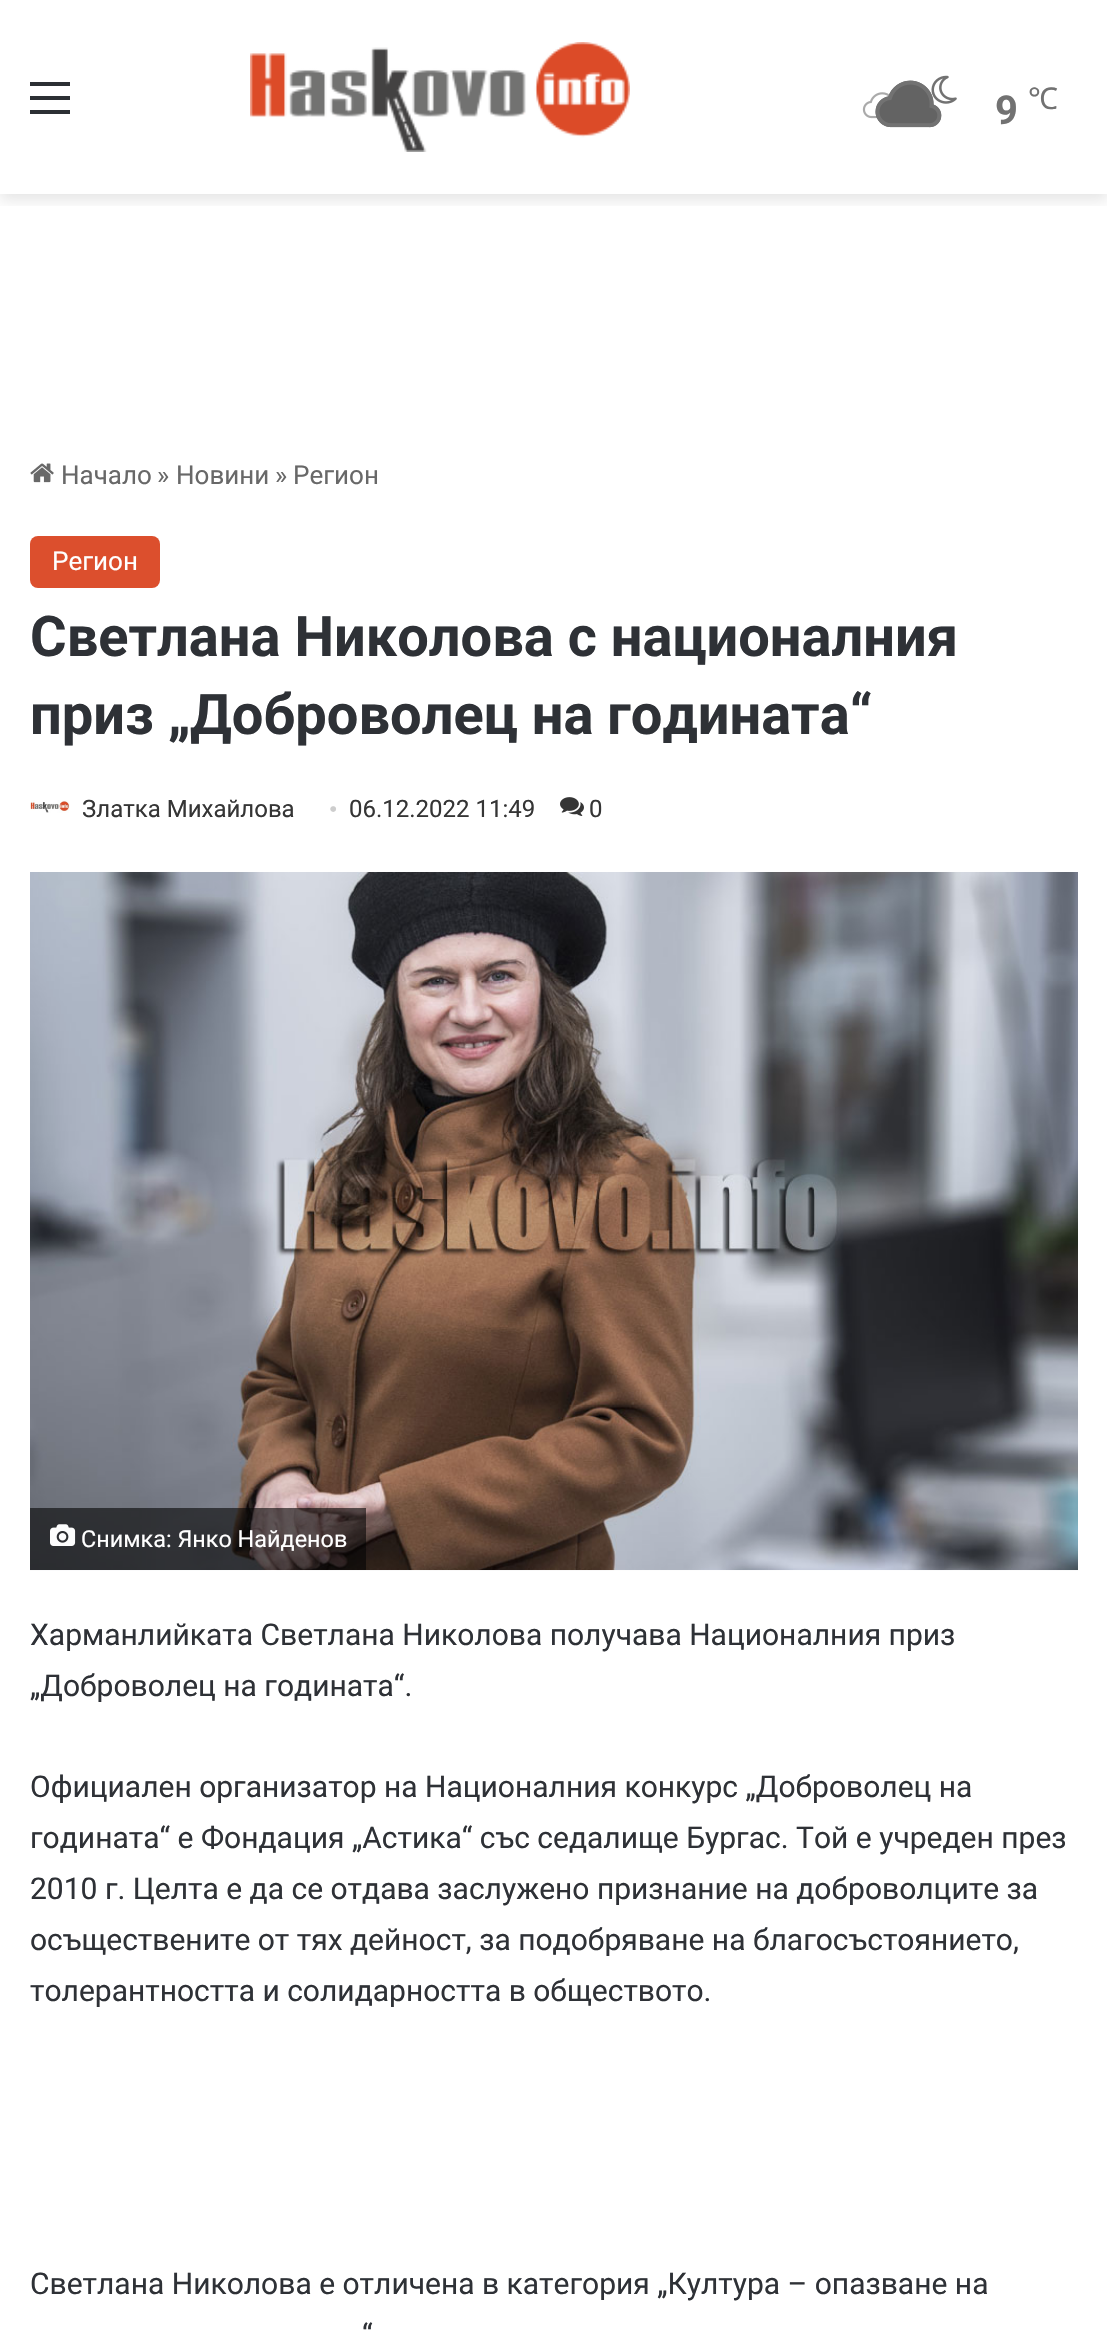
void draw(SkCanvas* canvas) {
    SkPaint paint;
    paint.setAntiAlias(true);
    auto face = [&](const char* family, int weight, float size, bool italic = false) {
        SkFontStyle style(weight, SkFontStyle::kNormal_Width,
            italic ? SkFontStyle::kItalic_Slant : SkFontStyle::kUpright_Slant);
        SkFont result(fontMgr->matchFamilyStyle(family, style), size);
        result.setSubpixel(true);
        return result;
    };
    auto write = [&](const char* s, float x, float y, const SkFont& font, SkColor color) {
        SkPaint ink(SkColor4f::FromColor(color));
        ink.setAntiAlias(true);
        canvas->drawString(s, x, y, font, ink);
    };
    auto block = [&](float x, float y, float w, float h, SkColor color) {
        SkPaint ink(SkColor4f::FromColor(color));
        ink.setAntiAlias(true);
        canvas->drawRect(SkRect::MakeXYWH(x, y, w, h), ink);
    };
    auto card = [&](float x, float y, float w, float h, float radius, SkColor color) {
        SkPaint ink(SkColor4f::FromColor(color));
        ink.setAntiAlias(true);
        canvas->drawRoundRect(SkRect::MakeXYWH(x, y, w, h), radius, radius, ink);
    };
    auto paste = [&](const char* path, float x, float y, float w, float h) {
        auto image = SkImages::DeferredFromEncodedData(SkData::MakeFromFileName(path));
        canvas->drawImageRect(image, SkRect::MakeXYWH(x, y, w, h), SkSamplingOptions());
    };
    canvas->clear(SK_ColorWHITE);
    canvas->save();
    canvas->clipRect(SkRect::MakeXYWH(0, 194, 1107, 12));
    paint.setColor(SkColorSetARGB(26, 0, 0, 0));
    paint.setMaskFilter(SkMaskFilter::MakeBlur(kNormal_SkBlurStyle, 7));
    canvas->drawRect(SkRect::MakeXYWH(0, 6, 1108, 194), paint);
    paint.setMaskFilter(nullptr);
    canvas->restore();
    block(30, 96, 40, 4, SkColorSetRGB(44, 47, 52));
    block(30, 82, 40, 4, SkColorSetRGB(44, 47, 52));
    block(30, 110, 40, 4, SkColorSetRGB(44, 47, 52));
    paste("pic1.png", 250, 42, 380, 110);
    paste("pic3.png", 931, 75, 26, 29);
    paste("pic5.png", 862, 92, 28, 27);
    paste("pic2.png", 875, 80, 67, 48);
    paste("pic4.png", 875, 80, 67, 48);
    auto kFont1 = face("Roboto", 700, 40);
    write("9", 995, 124, kFont1, SkColorSetRGB(114, 114, 114));
    auto kFont2 = face("Noto Sans", 400, 30);
    write("℃", 1028, 109, kFont2, SkColorSetRGB(114, 114, 114));
    paste("pic6.png", 30, 463, 24, 20);
    auto kFont3 = face("Roboto", 400, 26);
    write("Начало", 61, 484, kFont3, SkColorSetRGB(104, 104, 104));
    write("»", 157, 484, kFont3, SkColorSetRGB(104, 104, 104));
    write("Новини", 176, 484, kFont3, SkColorSetRGB(104, 104, 104));
    write("»", 275, 484, kFont3, SkColorSetRGB(104, 104, 104));
    write("Регион", 293, 484, kFont3, SkColorSetRGB(104, 104, 104));
    card(30, 536, 130, 52, 8, SkColorSetRGB(220, 79, 45));
    write("Регион", 52, 570, kFont3, SK_ColorWHITE);
    auto kFont4 = face("Roboto", 700, 56);
    write("Светлана Николова с националния", 30, 656, kFont4, SkColorSetRGB(46, 49, 54));
    write("приз „Доброволец на годината“", 30, 734, kFont4, SkColorSetRGB(46, 49, 54));
    paste("pic7.png", 30, 800, 40, 13);
    auto kFont5 = face("Roboto", 400, 24);
    write("Златка Михайлова", 82, 817, kFont5, SkColorSetRGB(53, 53, 53));
    auto kFont6 = face("Liberation Serif", 400, 24);
    write("•", 329, 817, kFont6, SkColorSetRGB(205, 205, 205));
    write("06.12.2022 11:49", 349, 817, kFont5, SkColorSetRGB(53, 53, 53));
    paste("pic8.png", 560, 797, 24, 19);
    write("0", 589, 817, kFont5, SkColorSetRGB(53, 53, 53));
    paste("pic9.png", 30, 872, 1048, 699);
    block(30, 1508, 336, 62, SkColorSetARGB(153, 3, 3, 3));
    paste("pic10.png", 50, 1524, 26, 22);
    auto kFont7 = face("Roboto", 400, 23.4f);
    write("Снимка: Янко Найденов", 81, 1547, kFont7, SK_ColorWHITE);
    auto kFont8 = face("Roboto", 400, 30);
    write("Харманлийката Светлана Николова получава Националния приз", 30, 1645, kFont8, SkColorSetRGB(46, 49, 54));
    write("„Доброволец на годината“.", 30, 1696, kFont8, SkColorSetRGB(46, 49, 54));
    write("Официален организатор на Националния конкурс „Доброволец на", 30, 1797, kFont8, SkColorSetRGB(46, 49, 54));
    write("годината“ е Фондация „Астика“ със седалище Бургас. Той е учреден през", 30, 1848, kFont8, SkColorSetRGB(46, 49, 54));
    write("2010 г. Целта е да се отдава заслужено признание на доброволците за", 30, 1899, kFont8, SkColorSetRGB(46, 49, 54));
    write("осъществените от тях дейност, за подобряване на благосъстоянието,", 30, 1950, kFont8, SkColorSetRGB(46, 49, 54));
    write("толерантността и солидарността в обществото.", 30, 2001, kFont8, SkColorSetRGB(46, 49, 54));
    write("Светлана Николова е отличена в категория „Култура – опазване на", 30, 2294, kFont8, SkColorSetRGB(46, 49, 54));
    write("“", 362, 2345, kFont8, SkColorSetRGB(46, 49, 54));
}
